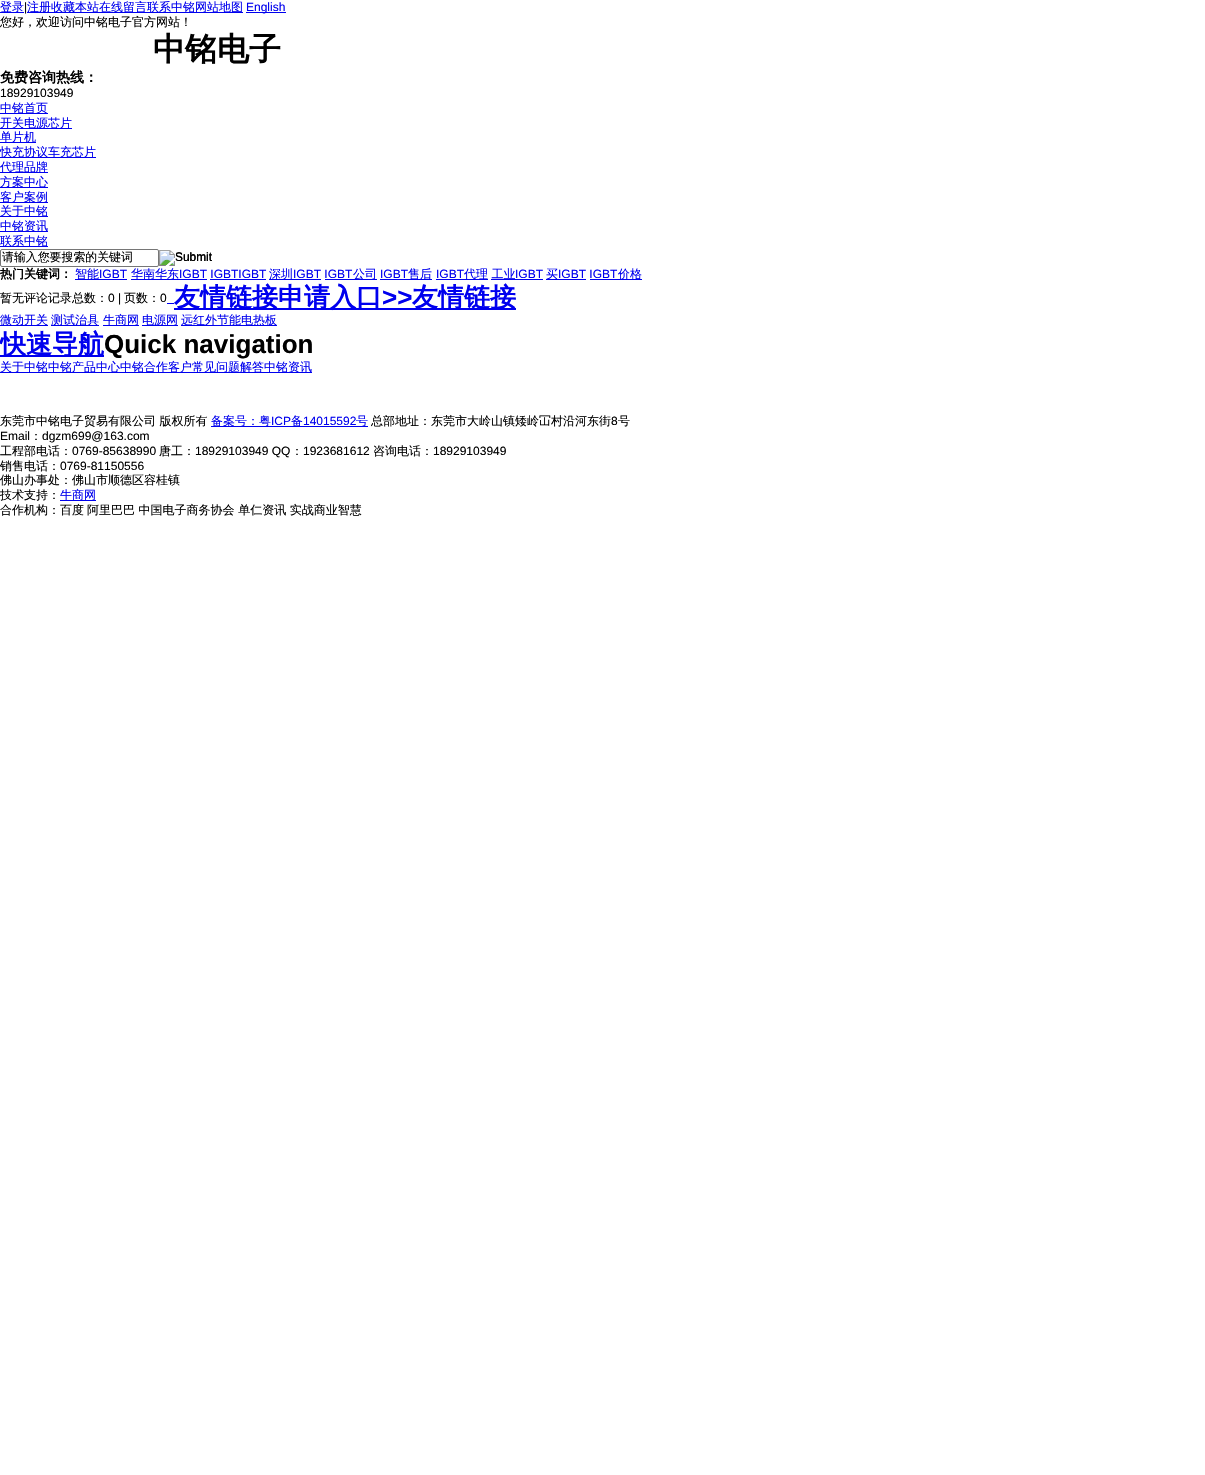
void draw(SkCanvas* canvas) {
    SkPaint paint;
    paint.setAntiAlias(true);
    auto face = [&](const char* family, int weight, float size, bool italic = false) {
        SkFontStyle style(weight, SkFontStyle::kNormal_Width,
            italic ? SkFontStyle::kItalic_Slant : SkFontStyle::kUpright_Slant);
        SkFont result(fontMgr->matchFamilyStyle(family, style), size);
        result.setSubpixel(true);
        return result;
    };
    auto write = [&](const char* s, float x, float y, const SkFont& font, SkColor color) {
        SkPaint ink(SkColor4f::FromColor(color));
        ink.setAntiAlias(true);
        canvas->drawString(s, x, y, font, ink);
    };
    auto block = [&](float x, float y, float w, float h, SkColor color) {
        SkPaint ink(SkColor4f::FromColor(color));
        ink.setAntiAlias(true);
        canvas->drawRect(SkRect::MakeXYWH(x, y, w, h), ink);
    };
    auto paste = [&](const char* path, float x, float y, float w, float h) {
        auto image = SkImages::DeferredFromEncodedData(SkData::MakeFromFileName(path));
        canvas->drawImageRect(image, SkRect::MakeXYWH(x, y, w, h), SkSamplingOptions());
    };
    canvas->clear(SK_ColorWHITE);
    block(0, 12, 24, 1, SkColorSetRGB(0, 0, 238));
    auto kFont1 = face("WenQuanYi Zen Hei", 500, 12);
    write("登录", 0, 11, kFont1, SkColorSetRGB(0, 0, 238));
    auto kFont2 = face("Liberation Sans", 400, 12);
    write("|", 24, 11, kFont2, SK_ColorBLACK);
    block(27, 12, 216, 1, SkColorSetRGB(0, 0, 238));
    write("注册收藏本站在线留言联系中铭网站地图", 27, 11, kFont1, SkColorSetRGB(0, 0, 238));
    block(246, 12, 40, 1, SkColorSetRGB(0, 0, 238));
    write("English", 246, 11, kFont2, SkColorSetRGB(0, 0, 238));
    write("您好，欢迎访问中铭电子官方网站！", 0, 26, kFont1, SK_ColorBLACK);
    auto kFont3 = face("WenQuanYi Zen Hei", 700, 32);
    write("中铭电子", 153, 60, kFont3, SK_ColorBLACK);
    auto kFont4 = face("WenQuanYi Zen Hei", 700, 14);
    write("免费咨询热线：", 0, 82, kFont4, SK_ColorBLACK);
    write("18929103949", 0, 97, kFont2, SK_ColorBLACK);
    block(0, 113, 48, 1, SkColorSetRGB(0, 0, 238));
    write("中铭首页", 0, 112, kFont1, SkColorSetRGB(0, 0, 238));
    block(0, 128, 72, 1, SkColorSetRGB(0, 0, 238));
    write("开关电源芯片", 0, 127, kFont1, SkColorSetRGB(0, 0, 238));
    block(0, 142, 36, 1, SkColorSetRGB(0, 0, 238));
    write("单片机", 0, 141, kFont1, SkColorSetRGB(0, 0, 238));
    block(0, 157, 96, 1, SkColorSetRGB(0, 0, 238));
    write("快充协议车充芯片", 0, 156, kFont1, SkColorSetRGB(0, 0, 238));
    block(0, 172, 48, 1, SkColorSetRGB(0, 0, 238));
    write("代理品牌", 0, 171, kFont1, SkColorSetRGB(0, 0, 238));
    block(0, 187, 48, 1, SkColorSetRGB(0, 0, 238));
    write("方案中心", 0, 186, kFont1, SkColorSetRGB(0, 0, 238));
    block(0, 202, 48, 1, SkColorSetRGB(0, 0, 238));
    write("客户案例", 0, 201, kFont1, SkColorSetRGB(0, 0, 238));
    block(0, 216, 48, 1, SkColorSetRGB(0, 0, 238));
    write("关于中铭", 0, 215, kFont1, SkColorSetRGB(0, 0, 238));
    block(0, 231, 48, 1, SkColorSetRGB(0, 0, 238));
    write("中铭资讯", 0, 230, kFont1, SkColorSetRGB(0, 0, 238));
    block(0, 246, 48, 1, SkColorSetRGB(0, 0, 238));
    write("联系中铭", 0, 245, kFont1, SkColorSetRGB(0, 0, 238));
    paint.setStyle(SkPaint::kStroke_Style);
    paint.setStrokeWidth(1);
    paint.setColor(SkColorSetRGB(118, 118, 118));
    canvas->drawRoundRect(SkRect::MakeXYWH(0.5f, 249.5f, 158, 17), 1.5f, 1.5f, paint);
    auto kFont5 = face("WenQuanYi Zen Hei", 500, 11.9f);
    write("请输入您要搜索的关键词", 2, 261, kFont5, SK_ColorBLACK);
    paste("pic1.png", 159, 250, 53, 16);
    auto kFont6 = face("Liberation Sans", 400, 11.9f);
    write("Submit", 175, 261, kFont6, SK_ColorBLACK);
    auto kFont7 = face("WenQuanYi Zen Hei", 700, 12);
    write("热门关键词：", 0, 278, kFont7, SK_ColorBLACK);
    block(75, 279, 52, 1, SkColorSetRGB(0, 0, 238));
    write("智能", 75, 278, kFont1, SkColorSetRGB(0, 0, 238));
    write("IGBT", 99, 278, kFont2, SkColorSetRGB(0, 0, 238));
    block(131, 279, 76, 1, SkColorSetRGB(0, 0, 238));
    write("华南华东", 131, 278, kFont1, SkColorSetRGB(0, 0, 238));
    write("IGBT IGBTIGBT", 179, 278, kFont2, SkColorSetRGB(0, 0, 238));
    block(269, 279, 52, 1, SkColorSetRGB(0, 0, 238));
    write("深圳", 269, 278, kFont1, SkColorSetRGB(0, 0, 238));
    write("IGBT IGBT", 293, 278, kFont2, SkColorSetRGB(0, 0, 238));
    block(325, 279, 52, 1, SkColorSetRGB(0, 0, 238));
    write("公司", 353, 278, kFont1, SkColorSetRGB(0, 0, 238));
    write("IGBT", 380, 278, kFont2, SkColorSetRGB(0, 0, 238));
    block(380, 279, 52, 1, SkColorSetRGB(0, 0, 238));
    write("售后", 408, 278, kFont1, SkColorSetRGB(0, 0, 238));
    write("IGBT", 436, 278, kFont2, SkColorSetRGB(0, 0, 238));
    block(436, 279, 52, 1, SkColorSetRGB(0, 0, 238));
    write("代理 工业", 464, 278, kFont1, SkColorSetRGB(0, 0, 238));
    write("IGBT", 515, 278, kFont2, SkColorSetRGB(0, 0, 238));
    block(491, 279, 52, 1, SkColorSetRGB(0, 0, 238));
    block(546, 279, 40, 1, SkColorSetRGB(0, 0, 238));
    write("买", 546, 278, kFont1, SkColorSetRGB(0, 0, 238));
    write("IGBT IGBT", 558, 278, kFont2, SkColorSetRGB(0, 0, 238));
    block(590, 279, 52, 1, SkColorSetRGB(0, 0, 238));
    write("价格", 618, 278, kFont1, SkColorSetRGB(0, 0, 238));
    block(210, 279, 56, 1, SkColorSetRGB(0, 0, 238));
    block(174, 308, 342, 2, SkColorSetRGB(0, 0, 238));
    auto kFont8 = face("WenQuanYi Zen Hei", 700, 26);
    write("友情链接申请入口", 174, 306, kFont8, SkColorSetRGB(0, 0, 238));
    auto kFont9 = face("Liberation Sans", 700, 26);
    write(">>", 382, 306, kFont9, SkColorSetRGB(0, 0, 238));
    write("友情链接", 412, 306, kFont8, SkColorSetRGB(0, 0, 238));
    block(0, 325, 48, 1, SkColorSetRGB(0, 0, 238));
    write("微动开关", 0, 324, kFont1, SkColorSetRGB(0, 0, 238));
    block(51, 325, 48, 1, SkColorSetRGB(0, 0, 238));
    write("测试治具", 51, 324, kFont1, SkColorSetRGB(0, 0, 238));
    block(103, 325, 36, 1, SkColorSetRGB(0, 0, 238));
    write("牛商网", 103, 324, kFont1, SkColorSetRGB(0, 0, 238));
    block(142, 325, 36, 1, SkColorSetRGB(0, 0, 238));
    write("电源网", 142, 324, kFont1, SkColorSetRGB(0, 0, 238));
    block(181, 325, 96, 1, SkColorSetRGB(0, 0, 238));
    write("远红外节能电热板", 181, 324, kFont1, SkColorSetRGB(0, 0, 238));
    block(0, 355, 104, 2, SkColorSetRGB(0, 0, 238));
    write("快速导航", 0, 353, kFont8, SkColorSetRGB(0, 0, 238));
    write("Quick navigation", 104, 353, kFont9, SK_ColorBLACK);
    block(0, 372, 312, 1, SkColorSetRGB(0, 0, 238));
    write("关于中铭中铭产品中心中铭合作客户常见问题解答中铭资讯", 0, 371, kFont1, SkColorSetRGB(0, 0, 238));
    write("东莞市中铭电子贸易有限公司 版权所有", 0, 425, kFont1, SK_ColorBLACK);
    block(211, 426, 157, 1, SkColorSetRGB(0, 0, 238));
    write("备案号：粤", 211, 425, kFont1, SkColorSetRGB(0, 0, 238));
    write("ICP", 271, 425, kFont2, SkColorSetRGB(0, 0, 238));
    write("备", 291, 425, kFont1, SkColorSetRGB(0, 0, 238));
    write("14015592", 303, 425, kFont2, SkColorSetRGB(0, 0, 238));
    write("号", 356, 425, kFont1, SkColorSetRGB(0, 0, 238));
    write("总部地址：东莞市大岭山镇矮岭冚村沿河东街", 371, 425, kFont1, SK_ColorBLACK);
    write("8", 611, 425, kFont2, SK_ColorBLACK);
    write("号", 618, 425, kFont1, SK_ColorBLACK);
    write("Email", 0, 440, kFont2, SK_ColorBLACK);
    write("：", 30, 440, kFont1, SK_ColorBLACK);
    write("dgzm699@163.com", 42, 440, kFont2, SK_ColorBLACK);
    write("工程部电话：", 0, 455, kFont1, SK_ColorBLACK);
    write("0769-85638990", 72, 455, kFont2, SK_ColorBLACK);
    write("唐工：", 159, 455, kFont1, SK_ColorBLACK);
    write("18929103949 QQ", 195, 455, kFont2, SK_ColorBLACK);
    write("：", 291, 455, kFont1, SK_ColorBLACK);
    write("1923681612", 303, 455, kFont2, SK_ColorBLACK);
    write("咨询电话：", 373, 455, kFont1, SK_ColorBLACK);
    write("18929103949", 433, 455, kFont2, SK_ColorBLACK);
    write("销售电话：", 0, 470, kFont1, SK_ColorBLACK);
    write("0769-81150556", 60, 470, kFont2, SK_ColorBLACK);
    write("佛山办事处：佛山市顺德区容桂镇", 0, 484, kFont1, SK_ColorBLACK);
    write("技术支持：", 0, 499, kFont1, SK_ColorBLACK);
    block(60, 500, 36, 1, SkColorSetRGB(0, 0, 238));
    write("牛商网", 60, 499, kFont1, SkColorSetRGB(0, 0, 238));
    write("合作机构：百度", 0, 514, kFont1, SK_ColorBLACK);
    write("阿里巴巴 中国电子商务协会 单仁资讯 实战商业智慧", 87, 514, kFont1, SK_ColorBLACK);
    write("暂无评论记录总数：", 0, 302, kFont1, SK_ColorBLACK);
    write("0 |", 108, 302, kFont2, SK_ColorBLACK);
    write("页数：", 124, 302, kFont1, SK_ColorBLACK);
    write("0", 160, 302, kFont2, SK_ColorBLACK);
    block(167, 303, 7, 1, SkColorSetRGB(0, 0, 238));
}
